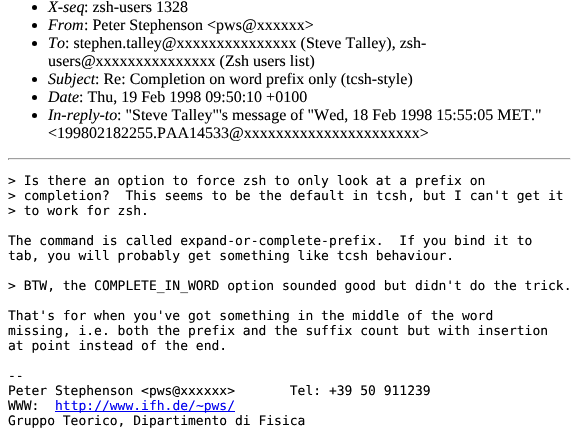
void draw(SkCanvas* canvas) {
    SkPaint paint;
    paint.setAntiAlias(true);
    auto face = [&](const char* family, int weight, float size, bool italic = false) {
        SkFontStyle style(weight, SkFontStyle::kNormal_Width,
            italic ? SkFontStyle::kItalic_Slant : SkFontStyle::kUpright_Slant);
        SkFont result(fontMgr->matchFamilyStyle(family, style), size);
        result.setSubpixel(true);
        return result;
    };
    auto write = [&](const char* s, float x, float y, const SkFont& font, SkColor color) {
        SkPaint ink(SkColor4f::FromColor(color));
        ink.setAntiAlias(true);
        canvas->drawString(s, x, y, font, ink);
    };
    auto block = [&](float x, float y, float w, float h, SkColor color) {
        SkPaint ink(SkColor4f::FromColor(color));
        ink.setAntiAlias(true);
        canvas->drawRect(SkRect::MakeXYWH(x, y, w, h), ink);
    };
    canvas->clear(SK_ColorWHITE);
    paint.setColor(SK_ColorBLACK);
    canvas->drawCircle(34.5f, 7.5f, 2.5f, paint);
    auto kFont1 = face("Liberation Serif", 400, 16, true);
    write("X-seq", 48, 12, kFont1, SK_ColorBLACK);
    auto kFont2 = face("Liberation Serif", 400, 16);
    write(": zsh-users 1328", 84, 12, kFont2, SK_ColorBLACK);
    canvas->drawCircle(34.5f, 25.5f, 2.5f, paint);
    write("From", 48, 30, kFont1, SK_ColorBLACK);
    write(": Peter Stephenson <pws@xxxxxx>", 84, 30, kFont2, SK_ColorBLACK);
    canvas->drawCircle(34.5f, 43.5f, 2.5f, paint);
    write("To", 48, 48, kFont1, SK_ColorBLACK);
    write(": stephen.talley@xxxxxxxxxxxxxxx (Steve Talley), zsh-", 65, 48, kFont2, SK_ColorBLACK);
    write("users@xxxxxxxxxxxxxxx (Zsh users list)", 48, 66, kFont2, SK_ColorBLACK);
    canvas->drawCircle(34.5f, 79.5f, 2.5f, paint);
    write("Subject", 48, 84, kFont1, SK_ColorBLACK);
    write(": Re: Completion on word prefix only (tcsh-style)", 95, 84, kFont2, SK_ColorBLACK);
    canvas->drawCircle(34.5f, 97.5f, 2.5f, paint);
    write("Date", 48, 102, kFont1, SK_ColorBLACK);
    write(": Thu, 19 Feb 1998 09:50:10 +0100", 79, 102, kFont2, SK_ColorBLACK);
    canvas->drawCircle(34.5f, 115.5f, 2.5f, paint);
    write("In-reply-to", 48, 120, kFont1, SK_ColorBLACK);
    write(": \"Steve Talley\"'s message of \"Wed, 18 Feb 1998 15:55:05 MET.\"", 117, 120, kFont2, SK_ColorBLACK);
    write("<199802182255.PAA14533@xxxxxxxxxxxxxxxxxxxxxx>", 48, 138, kFont2, SK_ColorBLACK);
    block(8, 158, 563, 1, SkColorSetRGB(159, 159, 159));
    block(570, 158, 1, 2, SkColorSetRGB(238, 238, 238));
    block(8, 159, 563, 1, SkColorSetRGB(238, 238, 238));
    block(8, 158, 1, 2, SkColorSetRGB(159, 159, 159));
    auto kFont3 = face("DejaVu Sans Mono", 400, 13);
    write("> Is there an option to force zsh to only look at a prefix on", 8, 185, kFont3, SK_ColorBLACK);
    write("> completion?  This seems to be the default in tcsh, but I can't get it", 8, 200, kFont3, SK_ColorBLACK);
    write("> to work for zsh.", 8, 215, kFont3, SK_ColorBLACK);
    write("The command is called expand-or-complete-prefix.  If you bind it to", 8, 245, kFont3, SK_ColorBLACK);
    write("tab, you will probably get something like tcsh behaviour.", 8, 260, kFont3, SK_ColorBLACK);
    write("> BTW, the COMPLETE_IN_WORD option sounded good but didn't do the trick.", 8, 290, kFont3, SK_ColorBLACK);
    write("That's for when you've got something in the middle of the word", 8, 320, kFont3, SK_ColorBLACK);
    write("missing, i.e. both the prefix and the suffix count but with insertion", 8, 335, kFont3, SK_ColorBLACK);
    write("at point instead of the end.", 8, 350, kFont3, SK_ColorBLACK);
    write("--", 8, 380, kFont3, SK_ColorBLACK);
    write("Peter Stephenson <pws@xxxxxx>       Tel: +39 50 911239", 8, 395, kFont3, SK_ColorBLACK);
    write("WWW:", 8, 410, kFont3, SK_ColorBLACK);
    block(55, 411, 180, 1, SkColorSetRGB(0, 0, 238));
    write("http://www.ifh.de/~pws/", 55, 410, kFont3, SkColorSetRGB(0, 0, 238));
    write("Gruppo Teorico, Dipartimento di Fisica", 8, 425, kFont3, SK_ColorBLACK);
}
